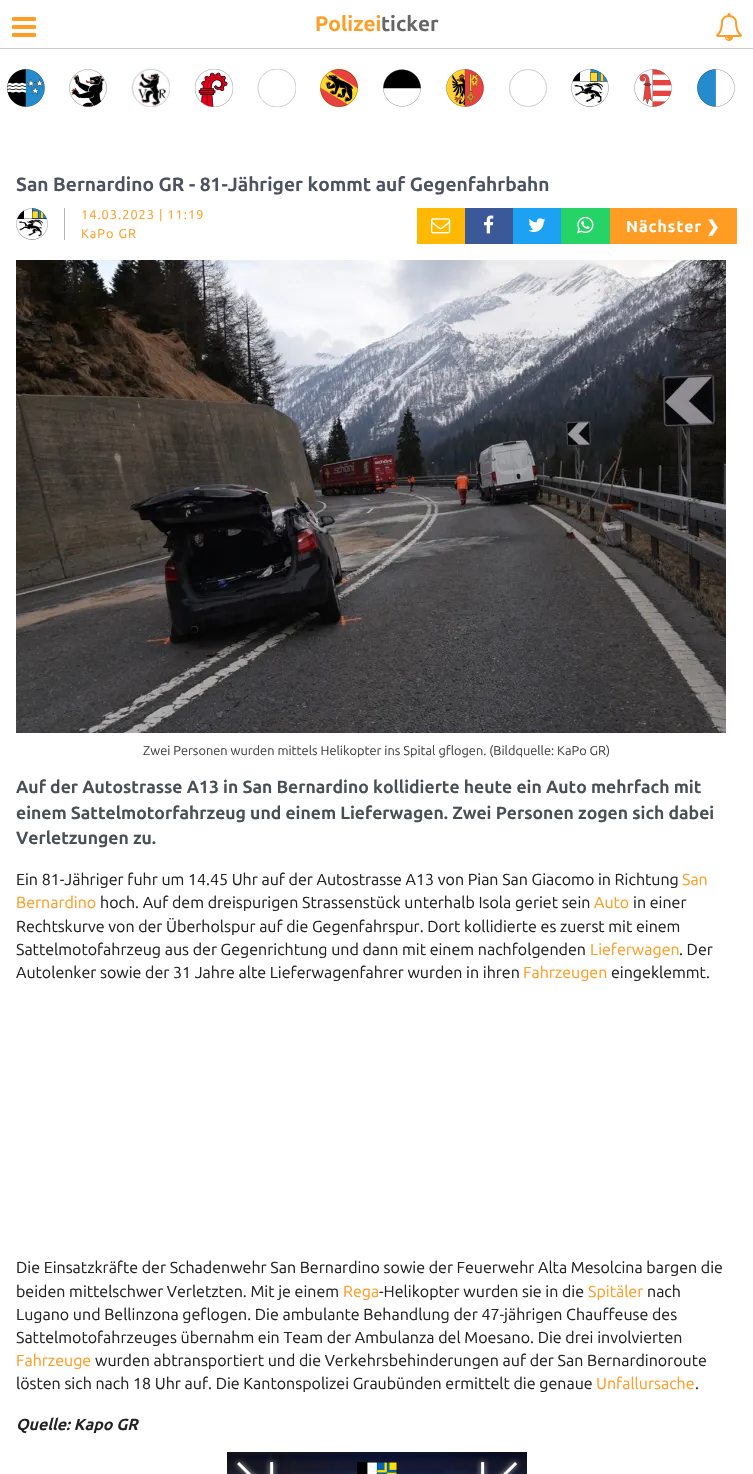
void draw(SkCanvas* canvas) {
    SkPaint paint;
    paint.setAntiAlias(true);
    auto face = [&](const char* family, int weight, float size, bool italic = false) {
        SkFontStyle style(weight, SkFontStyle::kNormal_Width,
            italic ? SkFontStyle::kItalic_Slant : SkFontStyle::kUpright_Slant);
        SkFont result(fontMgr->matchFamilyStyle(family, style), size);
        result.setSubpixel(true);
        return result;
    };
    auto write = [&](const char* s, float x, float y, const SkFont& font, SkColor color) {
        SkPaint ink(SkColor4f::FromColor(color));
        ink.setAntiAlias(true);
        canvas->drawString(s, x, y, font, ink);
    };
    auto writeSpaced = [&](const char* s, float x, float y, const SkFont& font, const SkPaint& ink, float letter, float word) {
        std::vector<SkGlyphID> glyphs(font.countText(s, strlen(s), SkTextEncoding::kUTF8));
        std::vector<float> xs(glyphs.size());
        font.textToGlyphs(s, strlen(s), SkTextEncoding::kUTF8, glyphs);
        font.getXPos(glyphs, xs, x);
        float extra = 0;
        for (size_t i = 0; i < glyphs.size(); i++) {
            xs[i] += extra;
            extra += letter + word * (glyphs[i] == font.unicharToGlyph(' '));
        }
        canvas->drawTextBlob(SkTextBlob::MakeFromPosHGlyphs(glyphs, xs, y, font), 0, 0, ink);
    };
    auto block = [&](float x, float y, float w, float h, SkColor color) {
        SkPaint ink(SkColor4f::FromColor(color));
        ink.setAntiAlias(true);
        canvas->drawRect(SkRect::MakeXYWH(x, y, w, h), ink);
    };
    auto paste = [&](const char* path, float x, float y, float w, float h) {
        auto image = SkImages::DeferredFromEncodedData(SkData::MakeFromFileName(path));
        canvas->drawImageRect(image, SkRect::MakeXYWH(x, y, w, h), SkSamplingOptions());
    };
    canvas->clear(SK_ColorWHITE);
    block(0, 48, 753, 1, SkColorSetRGB(204, 204, 204));
    paste("pic1.png", 12, 17, 24, 20);
    auto kFont1 = face("Ubuntu", 700, 21);
    write("Polizei", 315, 31, kFont1, SkColorSetRGB(255, 156, 35));
    write("ticker", 381, 31, kFont1, SkColorSetRGB(102, 102, 102));
    paste("pic2.png", 716, 13, 26, 28);
    paste("pic3.png", 7, 69, 38, 38);
    paste("pic4.png", 69, 69, 38, 38);
    paste("pic5.png", 131, 68, 39, 39);
    paste("pic6.png", 195, 69, 38, 38);
    canvas->save();
    canvas->clipRect(SkRect::MakeXYWH(257, 69, 39, 38));
    paint.setStyle(SkPaint::kStroke_Style);
    paint.setStrokeWidth(0.2f);
    paint.setColor(SK_ColorBLACK);
    canvas->drawCircle(277, 88, 19, paint);
    canvas->restore();
    paste("pic7.png", 320, 69, 38, 38);
    paste("pic8.png", 383, 69, 38, 38);
    paste("pic9.png", 446, 69, 38, 38);
    paint.setColor(SkColorSetRGB(1, 2, 2));
    canvas->drawCircle(528, 88, 18.5f, paint);
    paste("pic10.png", 571, 69, 38, 38);
    paste("pic11.png", 634, 69, 38, 38);
    paste("pic12.png", 697, 69, 38, 38);
    auto kFont2 = face("Ubuntu", 700, 19.2f);
    write("San Bernardino GR - 81-Jähriger kommt auf Gegenfahrbahn", 16, 191, kFont2, SkColorSetRGB(77, 82, 96));
    block(64, 208, 1, 32, SkColorSetRGB(179, 179, 179));
    paste("pic13.png", 16, 208, 32, 32);
    auto kFont3 = face("Ubuntu", 400, 12.8f);
    paint.setStyle(SkPaint::kFill_Style);
    paint.setColor(SkColorSetRGB(255, 156, 35));
    writeSpaced("14.03.2023 | 11:19", 81, 219, kFont3, paint, 1, 0);
    writeSpaced("KaPo GR", 81, 238, kFont3, paint, 1, 0);
    block(417, 208, 48, 36, SkColorSetRGB(255, 185, 3));
    paste("pic14.png", 431, 218, 20, 16);
    block(465, 208, 48, 36, SkColorSetRGB(59, 89, 152));
    paste("pic15.png", 484, 215, 10, 19);
    block(513, 208, 48, 36, SkColorSetRGB(29, 161, 242));
    paste("pic16.png", 528, 218, 18, 14);
    block(561, 208, 49, 36, SkColorSetRGB(37, 211, 102));
    paste("pic17.png", 577, 216, 17, 18);
    block(610, 208, 127, 36, SkColorSetRGB(255, 156, 35));
    auto kFont4 = face("Ubuntu", 700, 16);
    paint.setColor(SK_ColorWHITE);
    writeSpaced("Nächster", 626, 232, kFont4, paint, 1, 0);
    auto kFont5 = face("DejaVu Sans", 700, 16);
    writeSpaced("❯", 706, 232, kFont5, paint, 1, 0);
    paste("pic18.png", 16, 260, 710, 473);
    write("Zwei Personen wurden mittels Helikopter ins Spital gflogen. (Bildquelle: KaPo GR)", 143, 755, kFont3, SkColorSetRGB(68, 68, 68));
    auto kFont6 = face("Ubuntu", 700, 17.6f);
    write("Auf der Autostrasse A13 in San Bernardino kollidierte heute ein Auto mehrfach mit", 16, 793, kFont6, SkColorSetRGB(72, 80, 85));
    write("einem Sattelmotorfahrzeug und einem Lieferwagen. Zwei Personen zogen sich dabei", 16, 819, kFont6, SkColorSetRGB(72, 80, 85));
    write("Verletzungen zu.", 16, 844, kFont6, SkColorSetRGB(72, 80, 85));
    auto kFont7 = face("Ubuntu", 400, 16);
    write("Ein 81-Jähriger fuhr um 14.45 Uhr auf der Autostrasse A13 von Pian San Giacomo in Richtung", 16, 885, kFont7, SkColorSetRGB(34, 34, 34));
    write("San", 682, 885, kFont7, SkColorSetRGB(255, 156, 35));
    write("Bernardino", 16, 908, kFont7, SkColorSetRGB(255, 156, 35));
    write("hoch. Auf dem dreispurigen Strassenstück unterhalb Isola geriet sein", 100, 908, kFont7, SkColorSetRGB(34, 34, 34));
    write("Auto", 594, 908, kFont7, SkColorSetRGB(255, 156, 35));
    write("in einer", 633, 908, kFont7, SkColorSetRGB(34, 34, 34));
    write("Rechtskurve von der Überholspur auf die Gegenfahrspur. Dort kollidierte es zuerst mit einem", 16, 932, kFont7, SkColorSetRGB(34, 34, 34));
    write("Sattelmotofahrzeug aus der Gegenrichtung und dann mit einem nachfolgenden", 16, 955, kFont7, SkColorSetRGB(34, 34, 34));
    write("Lieferwagen", 590, 955, kFont7, SkColorSetRGB(255, 156, 35));
    write(". Der", 679, 955, kFont7, SkColorSetRGB(34, 34, 34));
    write("Autolenker sowie der 31 Jahre alte Lieferwagenfahrer wurden in ihren", 16, 978, kFont7, SkColorSetRGB(34, 34, 34));
    write("Fahrzeugen", 523, 978, kFont7, SkColorSetRGB(255, 156, 35));
    write("eingeklemmt.", 611, 978, kFont7, SkColorSetRGB(34, 34, 34));
    write("Die Einsatzkräfte der Schadenwehr San Bernardino sowie der Feuerwehr Alta Mesolcina bargen die", 16, 1273, kFont7, SkColorSetRGB(34, 34, 34));
    write("beiden mittelschwer Verletzten. Mit je einem", 16, 1297, kFont7, SkColorSetRGB(34, 34, 34));
    write("Rega", 343, 1297, kFont7, SkColorSetRGB(255, 156, 35));
    write("-Helikopter wurden sie in die", 379, 1297, kFont7, SkColorSetRGB(34, 34, 34));
    write("Spitäler", 588, 1297, kFont7, SkColorSetRGB(255, 156, 35));
    write("nach", 647, 1297, kFont7, SkColorSetRGB(34, 34, 34));
    write("Lugano und Bellinzona geflogen. Die ambulante Behandlung der 47-jährigen Chauffeuse des", 16, 1320, kFont7, SkColorSetRGB(34, 34, 34));
    write("Sattelmotofahrzeuges übernahm ein Team der Ambulanza del Moesano. Die drei involvierten", 16, 1343, kFont7, SkColorSetRGB(34, 34, 34));
    write("Fahrzeuge", 16, 1366, kFont7, SkColorSetRGB(255, 156, 35));
    write("wurden abtransportiert und die Verkehrsbehinderungen auf der San Bernardinoroute", 95, 1366, kFont7, SkColorSetRGB(34, 34, 34));
    write("lösten sich nach 18 Uhr auf. Die Kantonspolizei Graubünden ermittelt die genaue", 16, 1389, kFont7, SkColorSetRGB(34, 34, 34));
    write("Unfallursache", 596, 1389, kFont7, SkColorSetRGB(255, 156, 35));
    write(".", 695, 1389, kFont7, SkColorSetRGB(34, 34, 34));
    auto kFont8 = face("Ubuntu", 700, 16, true);
    write("Quelle: Kapo GR", 16, 1430, kFont8, SkColorSetRGB(34, 34, 34));
    paste("pic19.png", 227, 1452, 300, 22);
}
